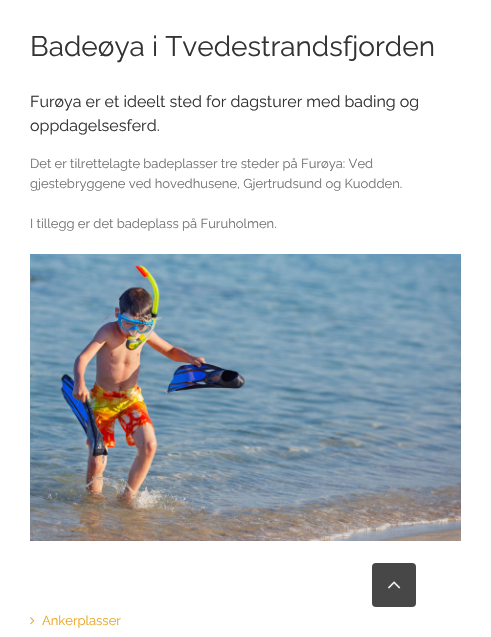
void draw(SkCanvas* canvas) {
    SkPaint paint;
    paint.setAntiAlias(true);
    auto face = [&](const char* family, int weight, float size, bool italic = false) {
        SkFontStyle style(weight, SkFontStyle::kNormal_Width,
            italic ? SkFontStyle::kItalic_Slant : SkFontStyle::kUpright_Slant);
        SkFont result(fontMgr->matchFamilyStyle(family, style), size);
        result.setSubpixel(true);
        return result;
    };
    auto write = [&](const char* s, float x, float y, const SkFont& font, SkColor color) {
        SkPaint ink(SkColor4f::FromColor(color));
        ink.setAntiAlias(true);
        canvas->drawString(s, x, y, font, ink);
    };
    auto card = [&](float x, float y, float w, float h, float radius, SkColor color) {
        SkPaint ink(SkColor4f::FromColor(color));
        ink.setAntiAlias(true);
        canvas->drawRoundRect(SkRect::MakeXYWH(x, y, w, h), radius, radius, ink);
    };
    auto paste = [&](const char* path, float x, float y, float w, float h) {
        auto image = SkImages::DeferredFromEncodedData(SkData::MakeFromFileName(path));
        canvas->drawImageRect(image, SkRect::MakeXYWH(x, y, w, h), SkSamplingOptions());
    };
    canvas->clear(SK_ColorWHITE);
    auto kFont1 = face("Raleway", 400, 28);
    write("Badeøya i Tvedestrandsfjorden", 30, 56, kFont1, SkColorSetRGB(51, 51, 51));
    auto kFont2 = face("Raleway", 400, 16);
    write("Furøya er et ideelt sted for dagsturer med bading og", 30, 107, kFont2, SkColorSetRGB(51, 51, 51));
    write("oppdagelsesferd.", 30, 131, kFont2, SkColorSetRGB(51, 51, 51));
    auto kFont3 = face("Raleway", 400, 13);
    write("Det er tilrettelagte badeplasser tre steder på Furøya: Ved", 30, 168, kFont3, SkColorSetRGB(116, 116, 116));
    write("gjestebryggene ved hovedhusene, Gjertrudsund og Kuodden.", 30, 188, kFont3, SkColorSetRGB(116, 116, 116));
    write("I tillegg er det badeplass på Furuholmen.", 30, 228, kFont3, SkColorSetRGB(116, 116, 116));
    paste("pic1.png", 30, 254, 431, 287);
    paste("pic2.png", 30, 617, 5, 8);
    write("Ankerplasser", 42, 625, kFont3, SkColorSetRGB(233, 168, 37));
    card(372, 563, 44, 44, 4, SkColorSetRGB(71, 71, 71));
    paste("pic3.png", 388, 581, 13, 8);
}
